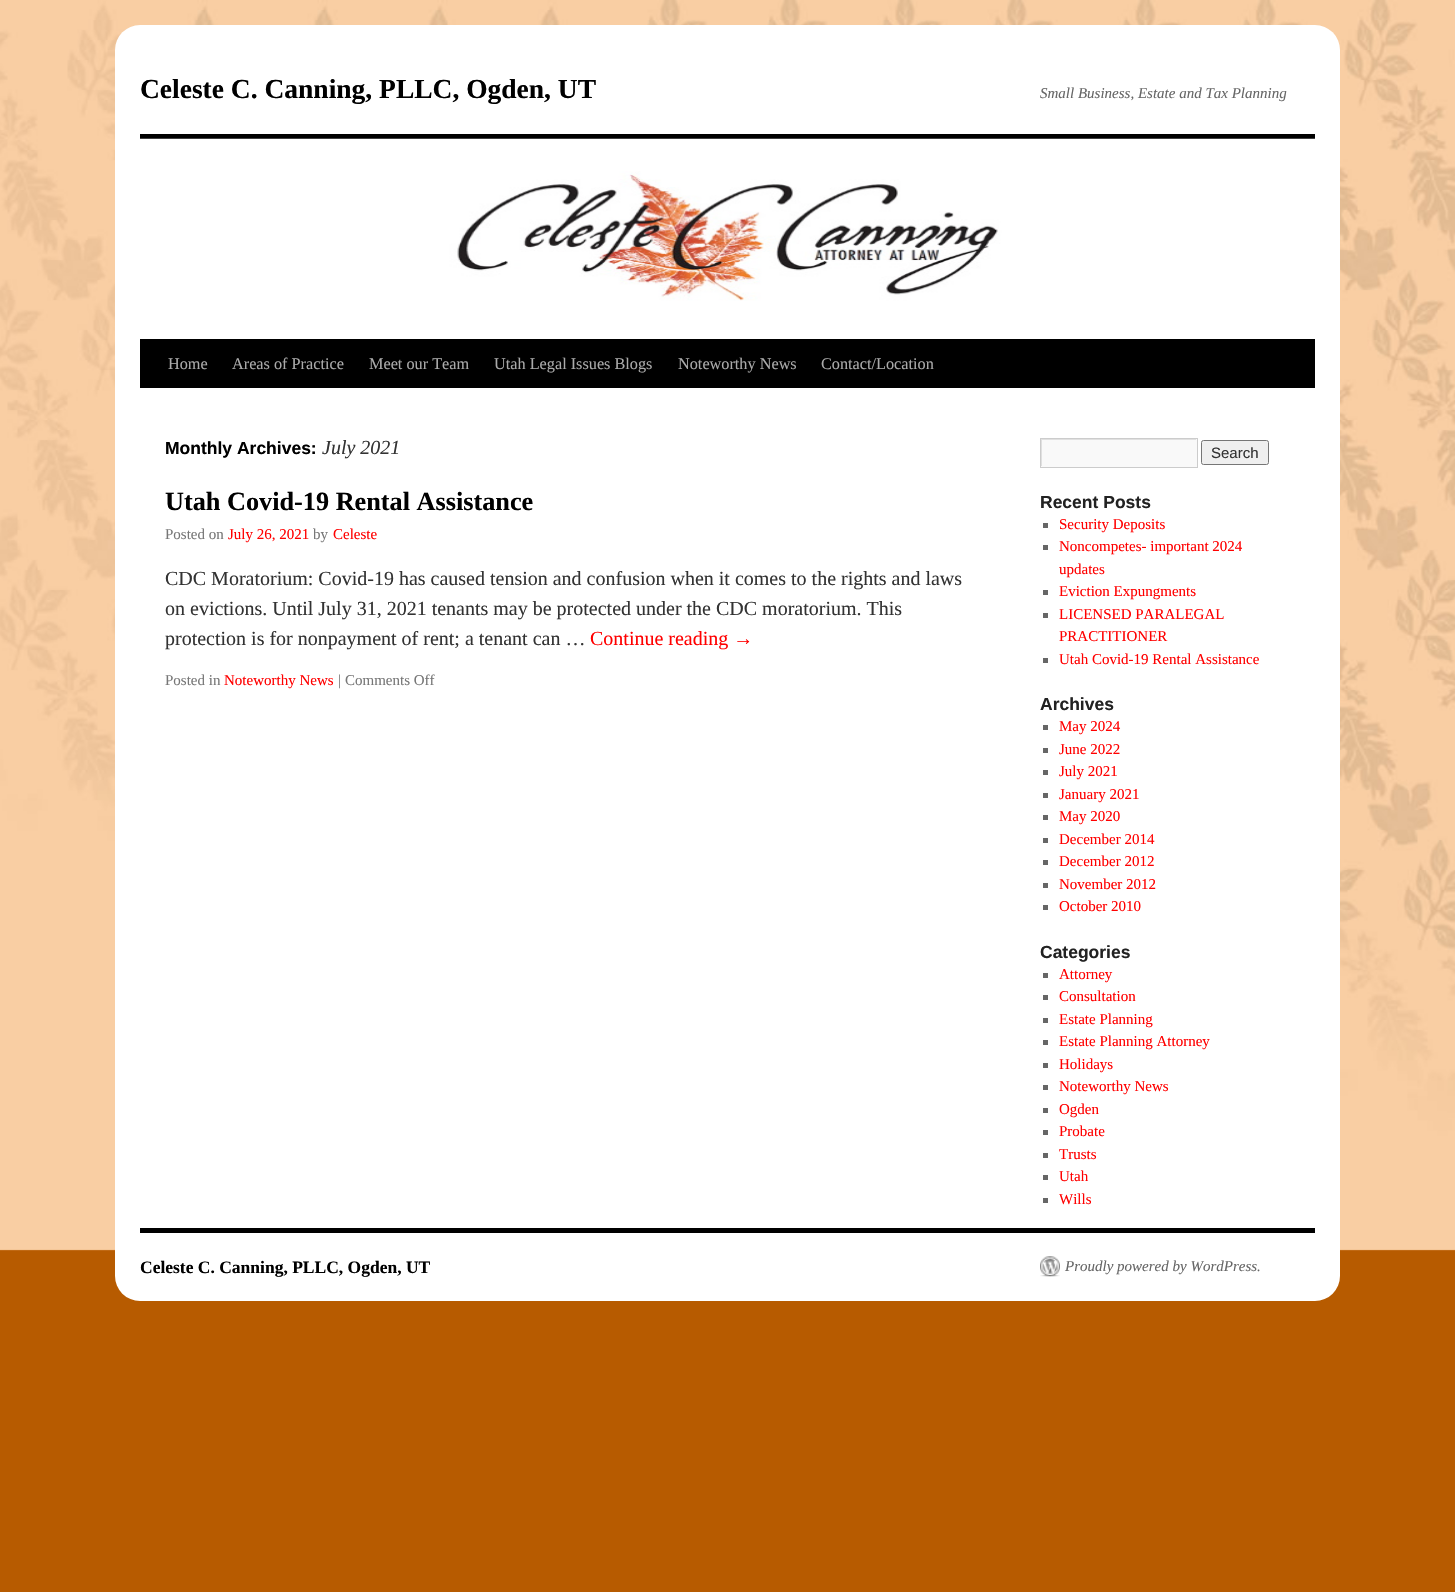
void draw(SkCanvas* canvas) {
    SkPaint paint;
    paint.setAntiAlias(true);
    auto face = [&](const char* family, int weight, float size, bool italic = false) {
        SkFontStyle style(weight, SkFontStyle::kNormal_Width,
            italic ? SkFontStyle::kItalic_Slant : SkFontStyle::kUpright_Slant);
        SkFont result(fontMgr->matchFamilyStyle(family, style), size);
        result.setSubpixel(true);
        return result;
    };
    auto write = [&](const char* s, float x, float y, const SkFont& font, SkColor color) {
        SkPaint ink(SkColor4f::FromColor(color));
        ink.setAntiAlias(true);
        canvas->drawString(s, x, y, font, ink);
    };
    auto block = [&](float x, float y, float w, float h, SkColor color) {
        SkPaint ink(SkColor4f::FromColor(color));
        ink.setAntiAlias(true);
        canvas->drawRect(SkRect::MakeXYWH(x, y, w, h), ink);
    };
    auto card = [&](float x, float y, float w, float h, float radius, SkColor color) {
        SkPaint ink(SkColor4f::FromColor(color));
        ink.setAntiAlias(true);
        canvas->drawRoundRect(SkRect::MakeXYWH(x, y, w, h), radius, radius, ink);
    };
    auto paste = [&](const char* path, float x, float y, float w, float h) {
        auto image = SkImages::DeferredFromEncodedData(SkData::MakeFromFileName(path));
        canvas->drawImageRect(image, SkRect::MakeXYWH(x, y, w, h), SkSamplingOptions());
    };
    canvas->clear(SkColorSetRGB(183, 91, 0));
    paste("pic1.png", 0, 0, 1455, 1251);
    card(115, 25, 1225, 1276, 25, SK_ColorWHITE);
    auto kFont1 = face("Liberation Serif", 700, 27.5f);
    write("Celeste C. Canning, PLLC, Ogden, UT", 140, 98, kFont1, SK_ColorBLACK);
    auto kFont2 = face("Liberation Serif", 400, 15, true);
    write("Small Business, Estate and Tax Planning", 1040, 98, kFont2, SkColorSetRGB(102, 102, 102));
    block(140, 134, 1175, 5, SK_ColorBLACK);
    block(140, 339, 1175, 49, SK_ColorBLACK);
    paste("pic2.png", 140, 138, 1175, 163);
    auto kFont3 = face("Liberation Serif", 400, 16.25f);
    write("Home", 168, 369, kFont3, SkColorSetRGB(170, 170, 170));
    write("Areas of Practice", 232, 369, kFont3, SkColorSetRGB(170, 170, 170));
    write("Meet our Team", 369, 369, kFont3, SkColorSetRGB(170, 170, 170));
    write("Utah Legal Issues Blogs", 494, 369, kFont3, SkColorSetRGB(170, 170, 170));
    write("Noteworthy News", 678, 369, kFont3, SkColorSetRGB(170, 170, 170));
    write("Contact/Location", 821, 369, kFont3, SkColorSetRGB(170, 170, 170));
    auto kFont4 = face("Liberation Sans", 700, 17.5f);
    write("Monthly Archives:", 165, 454, kFont4, SK_ColorBLACK);
    auto kFont5 = face("Liberation Serif", 400, 20, true);
    write("July 2021", 322, 454, kFont5, SkColorSetRGB(51, 51, 51));
    auto kFont6 = face("Liberation Serif", 700, 26.25f);
    write("Utah Covid-19 Rental Assistance", 165, 510, kFont6, SK_ColorBLACK);
    auto kFont7 = face("Liberation Serif", 400, 15);
    write("Posted on", 165, 539, kFont7, SkColorSetRGB(119, 119, 119));
    write("July 26, 2021", 228, 539, kFont7, SkColorSetRGB(255, 0, 0));
    write("by", 313, 539, kFont7, SkColorSetRGB(119, 119, 119));
    write("Celeste", 333, 539, kFont7, SkColorSetRGB(255, 0, 0));
    auto kFont8 = face("Liberation Serif", 400, 20);
    write("CDC Moratorium: Covid-19 has caused tension and confusion when it comes to the rights and laws", 165, 585, kFont8, SkColorSetRGB(51, 51, 51));
    write("on evictions. Until July 31, 2021 tenants may be protected under the CDC moratorium. This", 165, 615, kFont8, SkColorSetRGB(51, 51, 51));
    write("protection is for nonpayment of rent; a tenant can …", 165, 645, kFont8, SkColorSetRGB(51, 51, 51));
    write("Continue reading →", 590, 645, kFont8, SkColorSetRGB(255, 0, 0));
    write("Posted in", 165, 685, kFont7, SkColorSetRGB(119, 119, 119));
    write("Noteworthy News", 224, 685, kFont7, SkColorSetRGB(255, 0, 0));
    write("|", 338, 685, kFont7, SkColorSetRGB(119, 119, 119));
    write("Comments Off", 345, 685, kFont7, SkColorSetRGB(119, 119, 119));
    block(1041, 439, 156, 28, SkColorSetRGB(249, 249, 249));
    canvas->save();
    canvas->clipRect(SkRect::MakeXYWH(1041, 439, 155, 27));
    paint.setColor(SkColorSetRGB(224, 224, 224));
    canvas->drawPath(SkPathBuilder(SkPathFillType::kEvenOdd).moveTo(918, 315).lineTo(1320, 315).lineTo(1320, 590).lineTo(918, 590).close().moveTo(1042, 440).lineTo(1198, 440).lineTo(1198, 468).lineTo(1042, 468).close().detach(), paint);
    canvas->restore();
    paint.setStyle(SkPaint::kStroke_Style);
    paint.setStrokeWidth(1);
    paint.setColor(SkColorSetRGB(204, 204, 204));
    canvas->drawRect(SkRect::MakeXYWH(1040.5f, 438.5f, 157, 29), paint);
    paint.setStyle(SkPaint::kFill_Style);
    paint.setColor(SkColorSetRGB(239, 239, 239));
    canvas->drawRoundRect(SkRect::MakeXYWH(1201.5f, 440.5f, 67, 24), 2, 2, paint);
    paint.setStyle(SkPaint::kStroke_Style);
    paint.setColor(SkColorSetRGB(118, 118, 118));
    canvas->drawRoundRect(SkRect::MakeXYWH(1201.5f, 440.5f, 67, 24), 2, 2, paint);
    auto kFont9 = face("Liberation Sans", 400, 15);
    write("Search", 1211, 458, kFont9, SkColorSetRGB(51, 51, 51));
    write("Recent Posts", 1040, 508, kFont4, SkColorSetRGB(34, 34, 34));
    block(1043, 523, 5, 5, SkColorSetRGB(102, 102, 102));
    write("Security Deposits", 1059, 529, kFont7, SkColorSetRGB(255, 0, 0));
    block(1043, 545, 5, 5, SkColorSetRGB(102, 102, 102));
    write("Noncompetes- important 2024", 1059, 551, kFont7, SkColorSetRGB(255, 0, 0));
    write("updates", 1059, 574, kFont7, SkColorSetRGB(255, 0, 0));
    block(1043, 590, 5, 5, SkColorSetRGB(102, 102, 102));
    write("Eviction Expungments", 1059, 596, kFont7, SkColorSetRGB(255, 0, 0));
    block(1043, 613, 5, 5, SkColorSetRGB(102, 102, 102));
    write("LICENSED PARALEGAL", 1059, 619, kFont7, SkColorSetRGB(255, 0, 0));
    write("PRACTITIONER", 1059, 641, kFont7, SkColorSetRGB(255, 0, 0));
    block(1043, 658, 5, 5, SkColorSetRGB(102, 102, 102));
    write("Utah Covid-19 Rental Assistance", 1059, 664, kFont7, SkColorSetRGB(255, 0, 0));
    write("Archives", 1040, 710, kFont4, SkColorSetRGB(34, 34, 34));
    block(1043, 725, 5, 5, SkColorSetRGB(102, 102, 102));
    write("May 2024", 1059, 731, kFont7, SkColorSetRGB(255, 0, 0));
    block(1043, 748, 5, 5, SkColorSetRGB(102, 102, 102));
    write("June 2022", 1059, 754, kFont7, SkColorSetRGB(255, 0, 0));
    block(1043, 770, 5, 5, SkColorSetRGB(102, 102, 102));
    write("July 2021", 1059, 776, kFont7, SkColorSetRGB(255, 0, 0));
    block(1043, 793, 5, 5, SkColorSetRGB(102, 102, 102));
    write("January 2021", 1059, 799, kFont7, SkColorSetRGB(255, 0, 0));
    block(1043, 815, 5, 5, SkColorSetRGB(102, 102, 102));
    write("May 2020", 1059, 821, kFont7, SkColorSetRGB(255, 0, 0));
    block(1043, 838, 5, 5, SkColorSetRGB(102, 102, 102));
    write("December 2014", 1059, 844, kFont7, SkColorSetRGB(255, 0, 0));
    block(1043, 860, 5, 5, SkColorSetRGB(102, 102, 102));
    write("December 2012", 1059, 866, kFont7, SkColorSetRGB(255, 0, 0));
    block(1043, 883, 5, 5, SkColorSetRGB(102, 102, 102));
    write("November 2012", 1059, 889, kFont7, SkColorSetRGB(255, 0, 0));
    block(1043, 905, 5, 5, SkColorSetRGB(102, 102, 102));
    write("October 2010", 1059, 911, kFont7, SkColorSetRGB(255, 0, 0));
    write("Categories", 1040, 958, kFont4, SkColorSetRGB(34, 34, 34));
    block(1043, 973, 5, 5, SkColorSetRGB(102, 102, 102));
    write("Attorney", 1059, 979, kFont7, SkColorSetRGB(255, 0, 0));
    block(1043, 995, 5, 5, SkColorSetRGB(102, 102, 102));
    write("Consultation", 1059, 1001, kFont7, SkColorSetRGB(255, 0, 0));
    block(1043, 1018, 5, 5, SkColorSetRGB(102, 102, 102));
    write("Estate Planning", 1059, 1024, kFont7, SkColorSetRGB(255, 0, 0));
    block(1043, 1040, 5, 5, SkColorSetRGB(102, 102, 102));
    write("Estate Planning Attorney", 1059, 1046, kFont7, SkColorSetRGB(255, 0, 0));
    block(1043, 1063, 5, 5, SkColorSetRGB(102, 102, 102));
    write("Holidays", 1059, 1069, kFont7, SkColorSetRGB(255, 0, 0));
    block(1043, 1085, 5, 5, SkColorSetRGB(102, 102, 102));
    write("Noteworthy News", 1059, 1091, kFont7, SkColorSetRGB(255, 0, 0));
    block(1043, 1108, 5, 5, SkColorSetRGB(102, 102, 102));
    write("Ogden", 1059, 1114, kFont7, SkColorSetRGB(255, 0, 0));
    block(1043, 1130, 5, 5, SkColorSetRGB(102, 102, 102));
    write("Probate", 1059, 1136, kFont7, SkColorSetRGB(255, 0, 0));
    block(1043, 1153, 5, 5, SkColorSetRGB(102, 102, 102));
    write("Trusts", 1059, 1159, kFont7, SkColorSetRGB(255, 0, 0));
    block(1043, 1175, 5, 5, SkColorSetRGB(102, 102, 102));
    write("Utah", 1059, 1181, kFont7, SkColorSetRGB(255, 0, 0));
    block(1043, 1198, 5, 5, SkColorSetRGB(102, 102, 102));
    write("Wills", 1059, 1204, kFont7, SkColorSetRGB(255, 0, 0));
    block(140, 1228, 1175, 5, SK_ColorBLACK);
    auto kFont10 = face("Liberation Serif", 700, 17.5f);
    write("Celeste C. Canning, PLLC, Ogden, UT", 140, 1273, kFont10, SK_ColorBLACK);
    paste("pic3.png", 1040, 1256, 20, 21);
    write("Proudly powered by WordPress.", 1065, 1271, kFont2, SkColorSetRGB(102, 102, 102));
}
